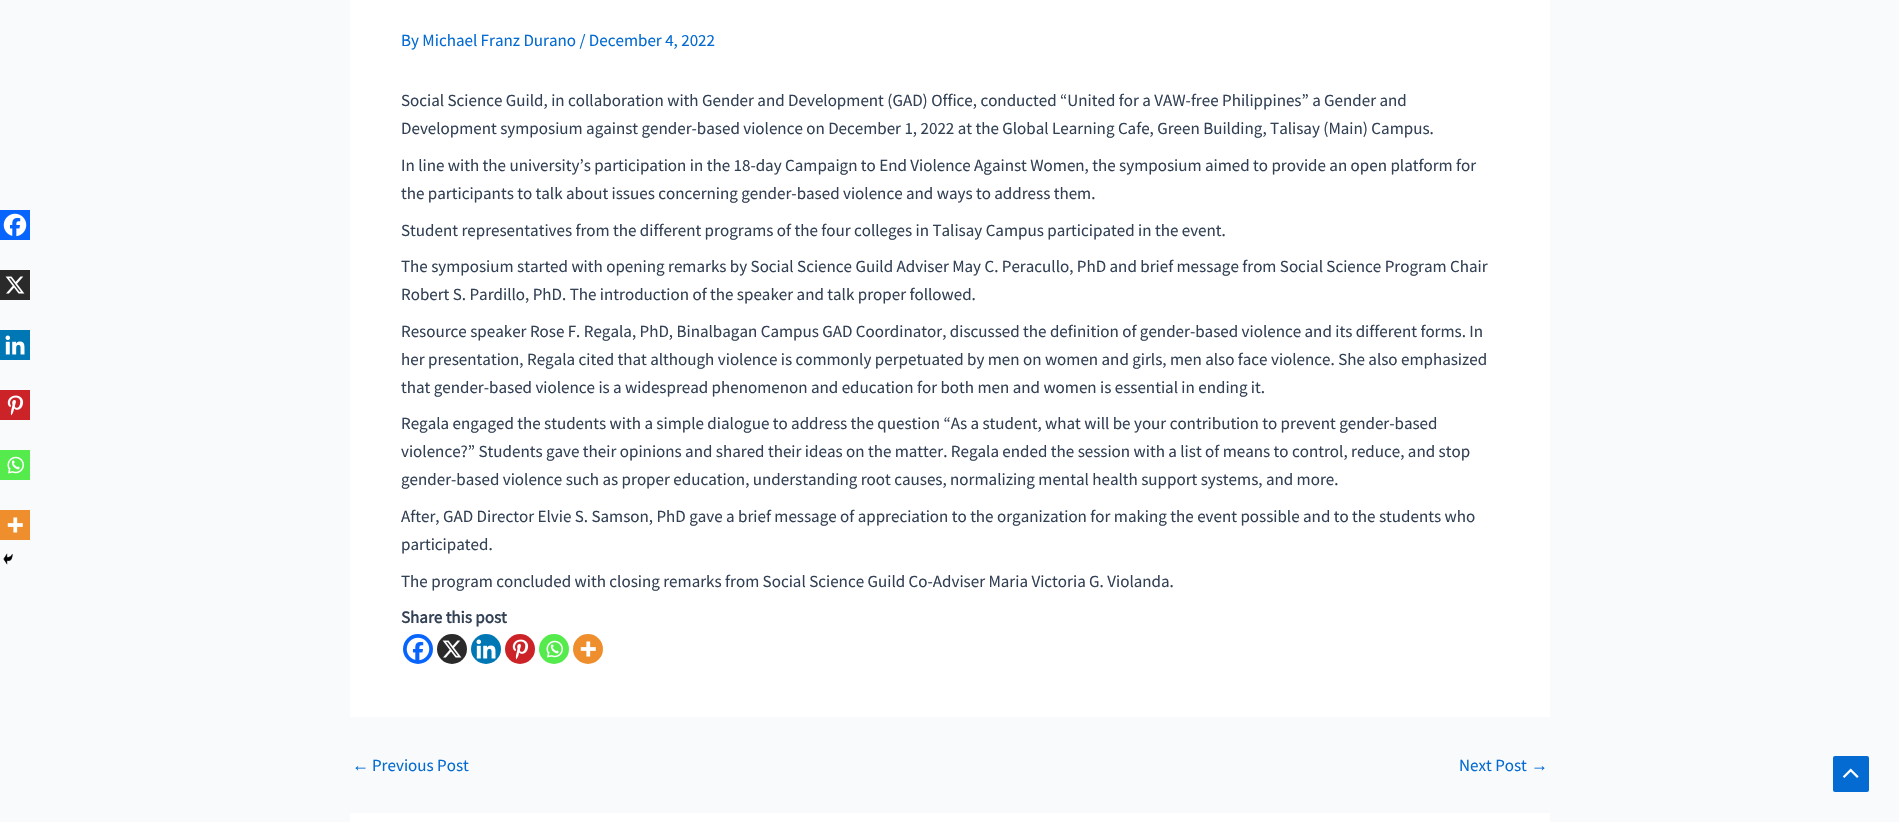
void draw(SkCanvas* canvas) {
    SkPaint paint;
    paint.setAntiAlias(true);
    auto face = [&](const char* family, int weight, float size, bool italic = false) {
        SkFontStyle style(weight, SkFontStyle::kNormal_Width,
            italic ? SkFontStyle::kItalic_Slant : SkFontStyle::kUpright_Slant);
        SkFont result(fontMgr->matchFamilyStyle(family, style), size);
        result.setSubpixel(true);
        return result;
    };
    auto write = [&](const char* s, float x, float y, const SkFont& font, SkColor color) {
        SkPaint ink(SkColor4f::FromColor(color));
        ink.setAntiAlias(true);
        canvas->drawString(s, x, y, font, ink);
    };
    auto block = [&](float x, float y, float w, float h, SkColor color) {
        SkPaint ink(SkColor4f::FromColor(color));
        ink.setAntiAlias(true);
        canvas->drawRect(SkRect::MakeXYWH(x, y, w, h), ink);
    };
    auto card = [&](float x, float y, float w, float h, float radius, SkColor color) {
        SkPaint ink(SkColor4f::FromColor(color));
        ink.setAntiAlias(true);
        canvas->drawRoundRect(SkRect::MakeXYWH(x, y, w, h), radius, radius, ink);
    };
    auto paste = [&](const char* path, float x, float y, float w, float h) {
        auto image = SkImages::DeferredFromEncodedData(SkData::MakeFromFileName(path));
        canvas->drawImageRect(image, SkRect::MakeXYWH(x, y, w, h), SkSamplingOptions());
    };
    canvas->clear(SkColorSetRGB(249, 250, 251));
    block(350, 0, 1200, 717, SK_ColorWHITE);
    auto kFont1 = face("Source Sans Pro", 400, 17);
    write("By Michael Franz Durano / December 4, 2022", 401, 46, kFont1, SkColorSetRGB(4, 107, 210));
    write("Social Science Guild, in collaboration with Gender and Development (GAD) Office, conducted “United for a VAW-free Philippines” a Gender and", 401, 106, kFont1, SkColorSetRGB(51, 65, 85));
    write("Development symposium against gender-based violence on December 1, 2022 at the Global Learning Cafe, Green Building, Talisay (Main) Campus.", 401, 134, kFont1, SkColorSetRGB(51, 65, 85));
    write("In line with the university’s participation in the 18-day Campaign to End Violence Against Women, the symposium aimed to provide an open platform for", 401, 171, kFont1, SkColorSetRGB(51, 65, 85));
    write("the participants to talk about issues concerning gender-based violence and ways to address them.", 401, 199, kFont1, SkColorSetRGB(51, 65, 85));
    block(0, 210, 30, 30, SkColorSetRGB(7, 101, 254));
    paste("pic1.png", 3, 213, 24, 24);
    block(0, 270, 30, 30, SkColorSetRGB(42, 42, 42));
    paste("pic2.png", 5, 276, 20, 18);
    block(0, 330, 30, 30, SkColorSetRGB(0, 119, 181));
    paste("pic3.png", 5, 335, 20, 20);
    block(0, 390, 30, 30, SkColorSetRGB(204, 35, 41));
    paste("pic4.png", 7, 395, 17, 21);
    block(0, 450, 30, 30, SkColorSetRGB(85, 235, 76));
    paste("pic5.png", 7, 456, 17, 18);
    block(0, 510, 30, 30, SkColorSetRGB(238, 142, 45));
    paste("pic6.png", 7, 517, 16, 16);
    paste("pic7.png", 3, 553, 10, 12);
    write("Student representatives from the different programs of the four colleges in Talisay Campus participated in the event.", 401, 236, kFont1, SkColorSetRGB(51, 65, 85));
    write("The symposium started with opening remarks by Social Science Guild Adviser May C. Peracullo, PhD and brief message from Social Science Program Chair", 401, 272, kFont1, SkColorSetRGB(51, 65, 85));
    write("Robert S. Pardillo, PhD. The introduction of the speaker and talk proper followed.", 401, 300, kFont1, SkColorSetRGB(51, 65, 85));
    write("Resource speaker Rose F. Regala, PhD, Binalbagan Campus GAD Coordinator, discussed the definition of gender-based violence and its different forms. In", 401, 337, kFont1, SkColorSetRGB(51, 65, 85));
    write("her presentation, Regala cited that although violence is commonly perpetuated by men on women and girls, men also face violence. She also emphasized", 401, 365, kFont1, SkColorSetRGB(51, 65, 85));
    write("that gender-based violence is a widespread phenomenon and education for both men and women is essential in ending it.", 401, 393, kFont1, SkColorSetRGB(51, 65, 85));
    write("Regala engaged the students with a simple dialogue to address the question “As a student, what will be your contribution to prevent gender-based", 401, 429, kFont1, SkColorSetRGB(51, 65, 85));
    write("violence?” Students gave their opinions and shared their ideas on the matter. Regala ended the session with a list of means to control, reduce, and stop", 401, 457, kFont1, SkColorSetRGB(51, 65, 85));
    write("gender-based violence such as proper education, understanding root causes, normalizing mental health support systems, and more.", 401, 485, kFont1, SkColorSetRGB(51, 65, 85));
    write("After, GAD Director Elvie S. Samson, PhD gave a brief message of appreciation to the organization for making the event possible and to the students who", 401, 522, kFont1, SkColorSetRGB(51, 65, 85));
    write("participated.", 401, 550, kFont1, SkColorSetRGB(51, 65, 85));
    write("The program concluded with closing remarks from Social Science Guild Co-Adviser Maria Victoria G. Violanda.", 401, 587, kFont1, SkColorSetRGB(51, 65, 85));
    auto kFont2 = face("Source Sans Pro", 700, 17);
    write("Share this post", 401, 623, kFont2, SkColorSetRGB(51, 65, 85));
    paint.setColor(SkColorSetRGB(7, 101, 254));
    canvas->drawCircle(418, 649, 15, paint);
    paste("pic8.png", 406, 637, 24, 24);
    paint.setColor(SkColorSetRGB(42, 42, 42));
    canvas->drawCircle(452, 649, 15, paint);
    paste("pic2.png", 442, 640, 20, 18);
    paint.setColor(SkColorSetRGB(0, 119, 181));
    canvas->drawCircle(486, 649, 15, paint);
    paste("pic3.png", 476, 639, 20, 20);
    paint.setColor(SkColorSetRGB(204, 35, 41));
    canvas->drawCircle(520, 649, 15, paint);
    paste("pic4.png", 512, 639, 17, 21);
    paint.setColor(SkColorSetRGB(85, 235, 76));
    canvas->drawCircle(554, 649, 15, paint);
    paste("pic5.png", 546, 640, 17, 18);
    paint.setColor(SkColorSetRGB(238, 142, 45));
    canvas->drawCircle(588, 649, 15, paint);
    paste("pic6.png", 580, 641, 16, 16);
    auto kFont3 = face("Liberation Sans", 400, 17);
    write("←", 352, 771, kFont3, SkColorSetRGB(4, 107, 210));
    write("Previous Post", 372, 771, kFont1, SkColorSetRGB(4, 107, 210));
    write("Next Post", 1459, 771, kFont1, SkColorSetRGB(4, 107, 210));
    write("→", 1531, 771, kFont3, SkColorSetRGB(4, 107, 210));
    block(350, 813, 1200, 9, SK_ColorWHITE);
    card(1833, 756, 36, 36, 2, SkColorSetRGB(4, 107, 210));
    paste("pic9.png", 1842, 768, 17, 10);
}
